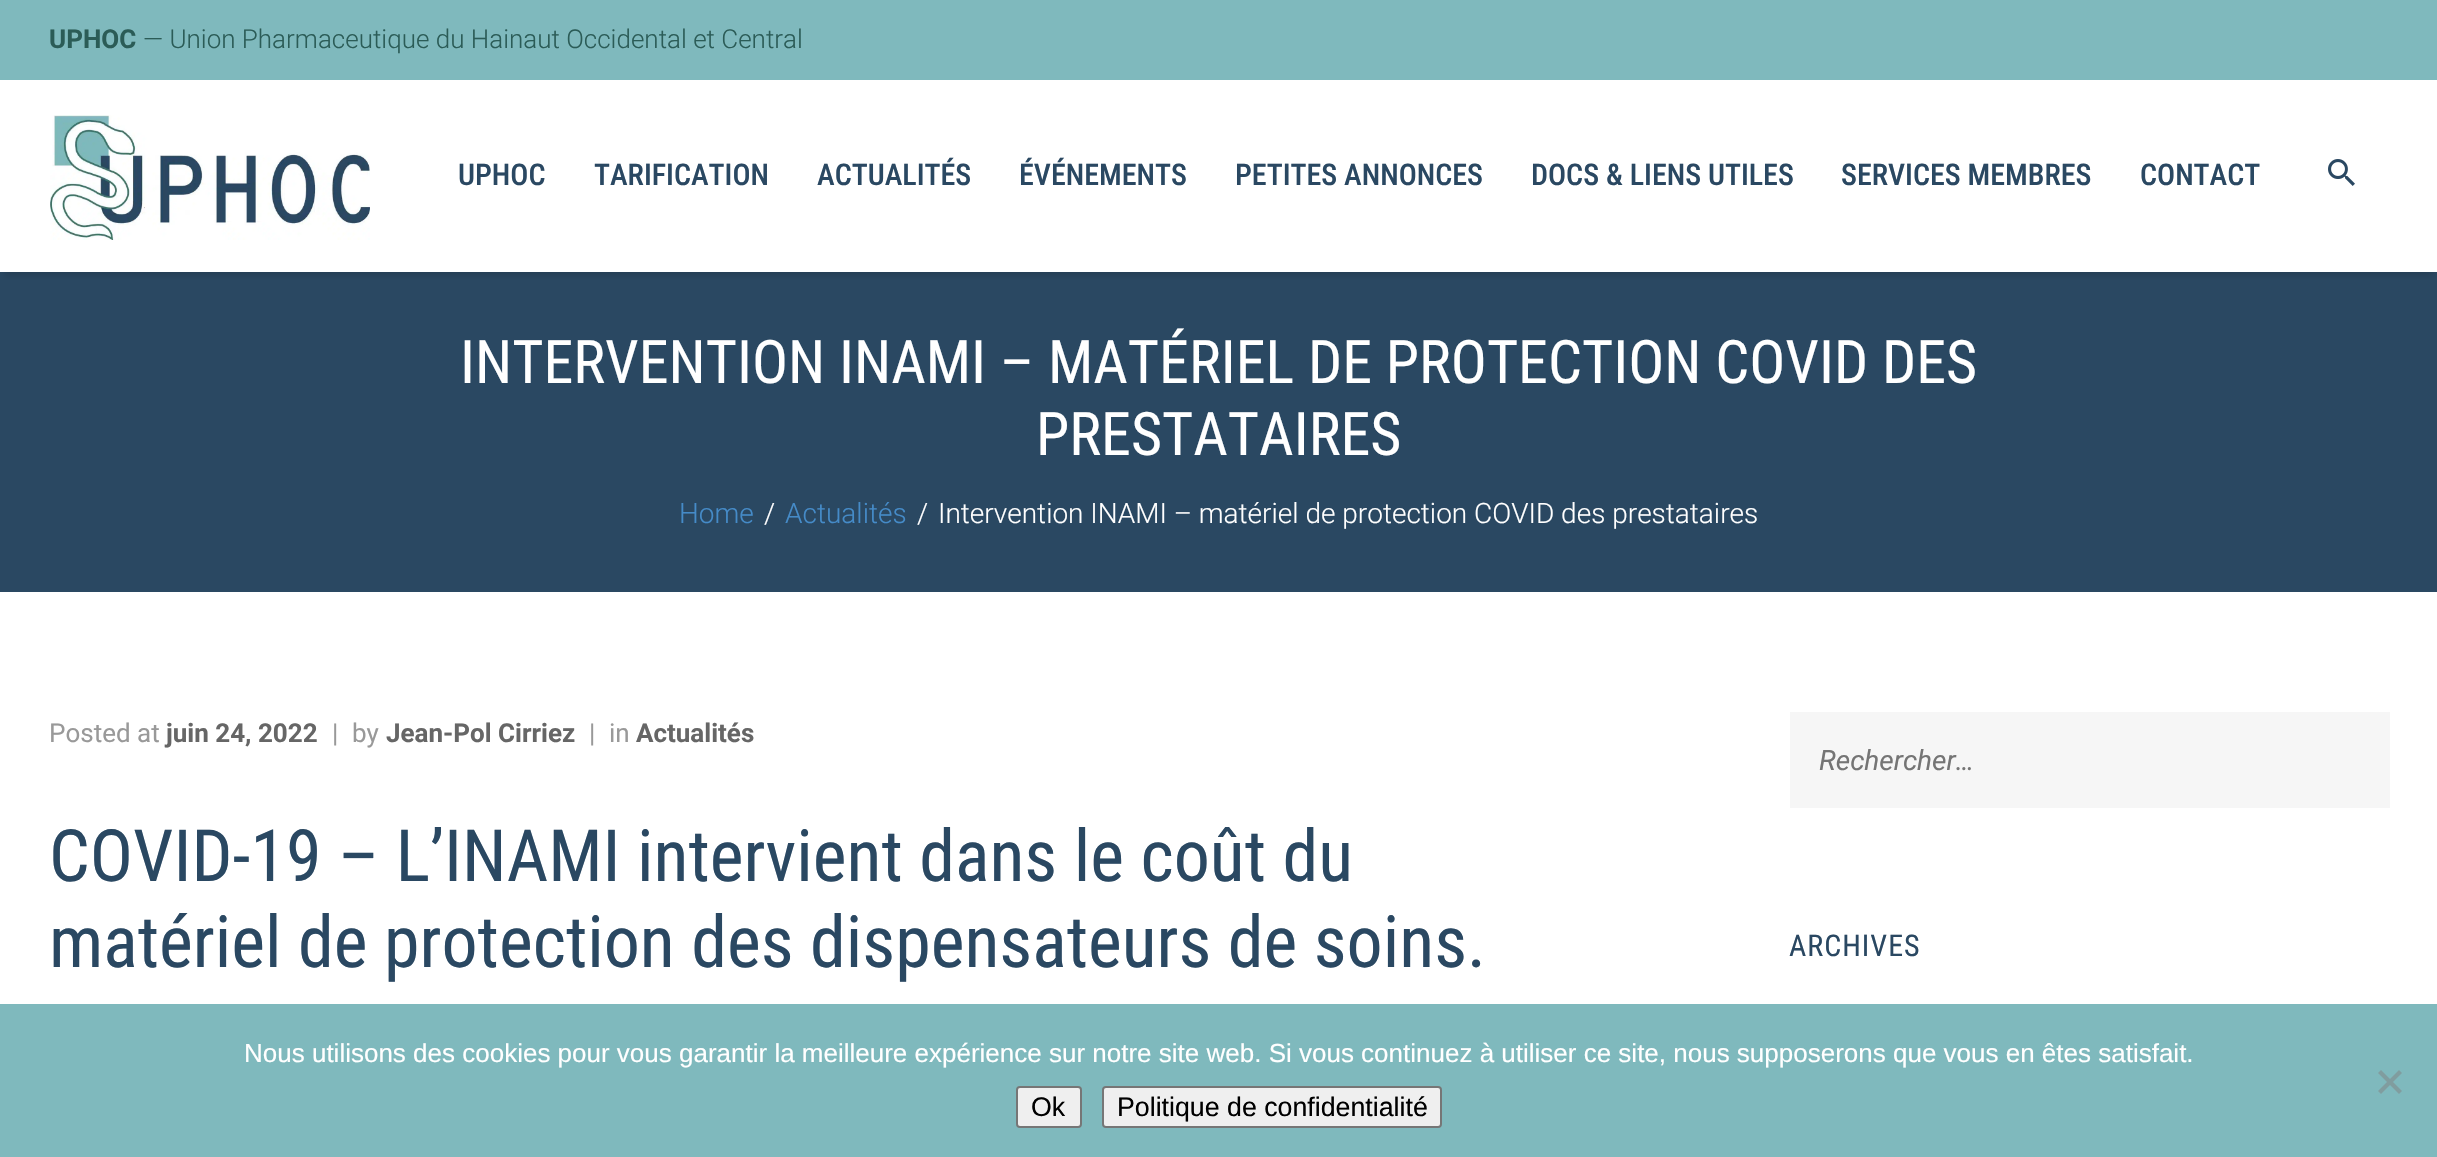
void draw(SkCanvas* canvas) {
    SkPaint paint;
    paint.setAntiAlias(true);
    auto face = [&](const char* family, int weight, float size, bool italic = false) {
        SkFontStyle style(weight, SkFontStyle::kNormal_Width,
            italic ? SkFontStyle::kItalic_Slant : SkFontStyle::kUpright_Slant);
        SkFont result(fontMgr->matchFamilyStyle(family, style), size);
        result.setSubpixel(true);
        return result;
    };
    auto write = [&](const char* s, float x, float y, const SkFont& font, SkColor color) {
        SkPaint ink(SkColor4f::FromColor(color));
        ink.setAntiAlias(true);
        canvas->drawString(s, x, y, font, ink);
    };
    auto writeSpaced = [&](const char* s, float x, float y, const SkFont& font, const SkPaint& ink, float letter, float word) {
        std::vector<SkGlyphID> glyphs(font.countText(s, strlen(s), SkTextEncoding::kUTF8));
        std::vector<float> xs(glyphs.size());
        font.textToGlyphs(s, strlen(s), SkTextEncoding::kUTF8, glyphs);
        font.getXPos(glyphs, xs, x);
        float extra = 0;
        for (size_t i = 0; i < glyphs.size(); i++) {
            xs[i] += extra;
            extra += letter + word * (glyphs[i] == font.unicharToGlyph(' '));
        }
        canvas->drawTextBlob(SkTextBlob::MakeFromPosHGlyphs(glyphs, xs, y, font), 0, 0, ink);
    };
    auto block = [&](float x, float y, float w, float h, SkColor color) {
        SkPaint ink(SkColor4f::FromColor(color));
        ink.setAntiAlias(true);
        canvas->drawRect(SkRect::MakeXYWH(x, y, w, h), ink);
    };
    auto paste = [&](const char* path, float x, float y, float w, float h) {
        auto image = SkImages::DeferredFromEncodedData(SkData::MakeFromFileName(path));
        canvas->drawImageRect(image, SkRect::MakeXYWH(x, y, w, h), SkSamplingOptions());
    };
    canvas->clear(SK_ColorWHITE);
    block(0, 0, 2437, 80, SkColorSetRGB(127, 185, 189));
    auto kFont1 = face("Roboto", 700, 26);
    write("UPHOC", 49, 48, kFont1, SkColorSetRGB(43, 92, 87));
    auto kFont2 = face("Roboto", 300, 26);
    write("— Union Pharmaceutique du Hainaut Occidental et Central", 143, 48, kFont2, SkColorSetRGB(43, 92, 87));
    block(0, 272, 2437, 320, SkColorSetRGB(42, 72, 98));
    canvas->save();
    canvas->clipRect(SkRect::MakeXYWH(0, 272, 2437, 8));
    paint.setColor(SkColorSetARGB(38, 0, 0, 0));
    paint.setMaskFilter(SkMaskFilter::MakeBlur(kNormal_SkBlurStyle, 4));
    canvas->drawRect(SkRect::MakeXYWH(4, 92, 2430, 184), paint);
    paint.setMaskFilter(nullptr);
    canvas->restore();
    paste("pic1.png", 50, 115, 320, 125);
    auto kFont3 = face("Roboto Condensed", 500, 30);
    write("UPHOC", 458, 185, kFont3, SkColorSetRGB(42, 72, 98));
    write("TARIFICATION", 594, 185, kFont3, SkColorSetRGB(42, 72, 98));
    write("ACTUALITÉS", 817, 185, kFont3, SkColorSetRGB(42, 72, 98));
    write("ÉVÉNEMENTS", 1019, 185, kFont3, SkColorSetRGB(42, 72, 98));
    write("PETITES ANNONCES", 1235, 185, kFont3, SkColorSetRGB(42, 72, 98));
    write("DOCS & LIENS UTILES", 1531, 185, kFont3, SkColorSetRGB(42, 72, 98));
    write("SERVICES MEMBRES", 1841, 185, kFont3, SkColorSetRGB(42, 72, 98));
    write("CONTACT", 2140, 185, kFont3, SkColorSetRGB(42, 72, 98));
    paste("pic2.png", 2328, 159, 27, 27);
    auto kFont4 = face("Roboto Condensed", 400, 60);
    write("INTERVENTION INAMI – MATÉRIEL DE PROTECTION COVID DES", 460, 383, kFont4, SK_ColorWHITE);
    write("PRESTATAIRES", 1036, 455, kFont4, SK_ColorWHITE);
    auto kFont5 = face("Roboto", 300, 28);
    write("Home", 679, 523, kFont5, SkColorSetRGB(69, 139, 200));
    write("/", 764, 523, kFont5, SK_ColorWHITE);
    write("Actualités", 785, 523, kFont5, SkColorSetRGB(69, 139, 200));
    write("/", 917, 523, kFont5, SK_ColorWHITE);
    write("Intervention INAMI – matériel de protection COVID des prestataires", 938, 523, kFont5, SK_ColorWHITE);
    auto kFont6 = face("Roboto", 400, 26);
    write("Posted at", 49, 742, kFont6, SkColorSetRGB(153, 153, 153));
    write("juin 24, 2022", 166, 742, kFont1, SkColorSetRGB(102, 102, 102));
    write("|", 332, 742, kFont6, SkColorSetRGB(153, 153, 153));
    write("by", 352, 742, kFont6, SkColorSetRGB(153, 153, 153));
    write("Jean-Pol Cirriez", 386, 742, kFont1, SkColorSetRGB(102, 102, 102));
    write("|", 589, 742, kFont6, SkColorSetRGB(153, 153, 153));
    write("in", 609, 742, kFont6, SkColorSetRGB(153, 153, 153));
    write("Actualités", 636, 742, kFont1, SkColorSetRGB(102, 102, 102));
    auto kFont7 = face("Roboto Condensed", 400, 72);
    write("COVID-19 – L’INAMI intervient dans le coût du", 49, 881, kFont7, SkColorSetRGB(42, 72, 98));
    write("matériel de protection des dispensateurs de soins.", 49, 967, kFont7, SkColorSetRGB(42, 72, 98));
    block(1790, 712, 600, 96, SkColorSetRGB(246, 246, 246));
    auto kFont8 = face("Roboto", 400, 28, true);
    write("Rechercher…", 1819, 770, kFont8, SkColorSetRGB(117, 117, 117));
    auto kFont9 = face("Roboto Condensed", 400, 30);
    paint.setColor(SkColorSetRGB(42, 72, 98));
    writeSpaced("ARCHIVES", 1789, 956, kFont9, paint, 1, 0);
    block(0, 1004, 2437, 153, SkColorSetRGB(127, 185, 189));
    auto kFont10 = face("Liberation Sans", 400, 26);
    write("Nous utilisons des cookies pour vous garantir la meilleure expérience sur notre site web. Si vous continuez à utiliser ce site, nous supposerons que vous en êtes satisfait.", 244, 1062, kFont10, SK_ColorWHITE);
    paint.setColor(SkColorSetRGB(128, 157, 159));
    canvas->drawPath(SkPathBuilder().moveTo(2399, 1070).lineTo(2402, 1073).lineTo(2381, 1094).lineTo(2378, 1091).close().detach(), paint);
    canvas->drawPath(SkPathBuilder().moveTo(2378, 1073).lineTo(2381, 1070).lineTo(2402, 1091).lineTo(2399, 1094).close().detach(), paint);
    paint.setColor(SkColorSetRGB(239, 239, 239));
    canvas->drawRoundRect(SkRect::MakeXYWH(1017, 1087, 64, 40), 3, 3, paint);
    paint.setStyle(SkPaint::kStroke_Style);
    paint.setStrokeWidth(2);
    paint.setColor(SkColorSetRGB(118, 118, 118));
    canvas->drawRoundRect(SkRect::MakeXYWH(1017, 1087, 64, 40), 3, 3, paint);
    auto kFont11 = face("Liberation Sans", 400, 26.75f);
    write("Ok", 1031, 1116, kFont11, SK_ColorBLACK);
    paint.setStyle(SkPaint::kFill_Style);
    paint.setColor(SkColorSetRGB(239, 239, 239));
    canvas->drawRoundRect(SkRect::MakeXYWH(1103, 1087, 338, 40), 3, 3, paint);
    paint.setStyle(SkPaint::kStroke_Style);
    paint.setColor(SkColorSetRGB(118, 118, 118));
    canvas->drawRoundRect(SkRect::MakeXYWH(1103, 1087, 338, 40), 3, 3, paint);
    write("Politique de confidentialité", 1117, 1116, kFont11, SK_ColorBLACK);
}
